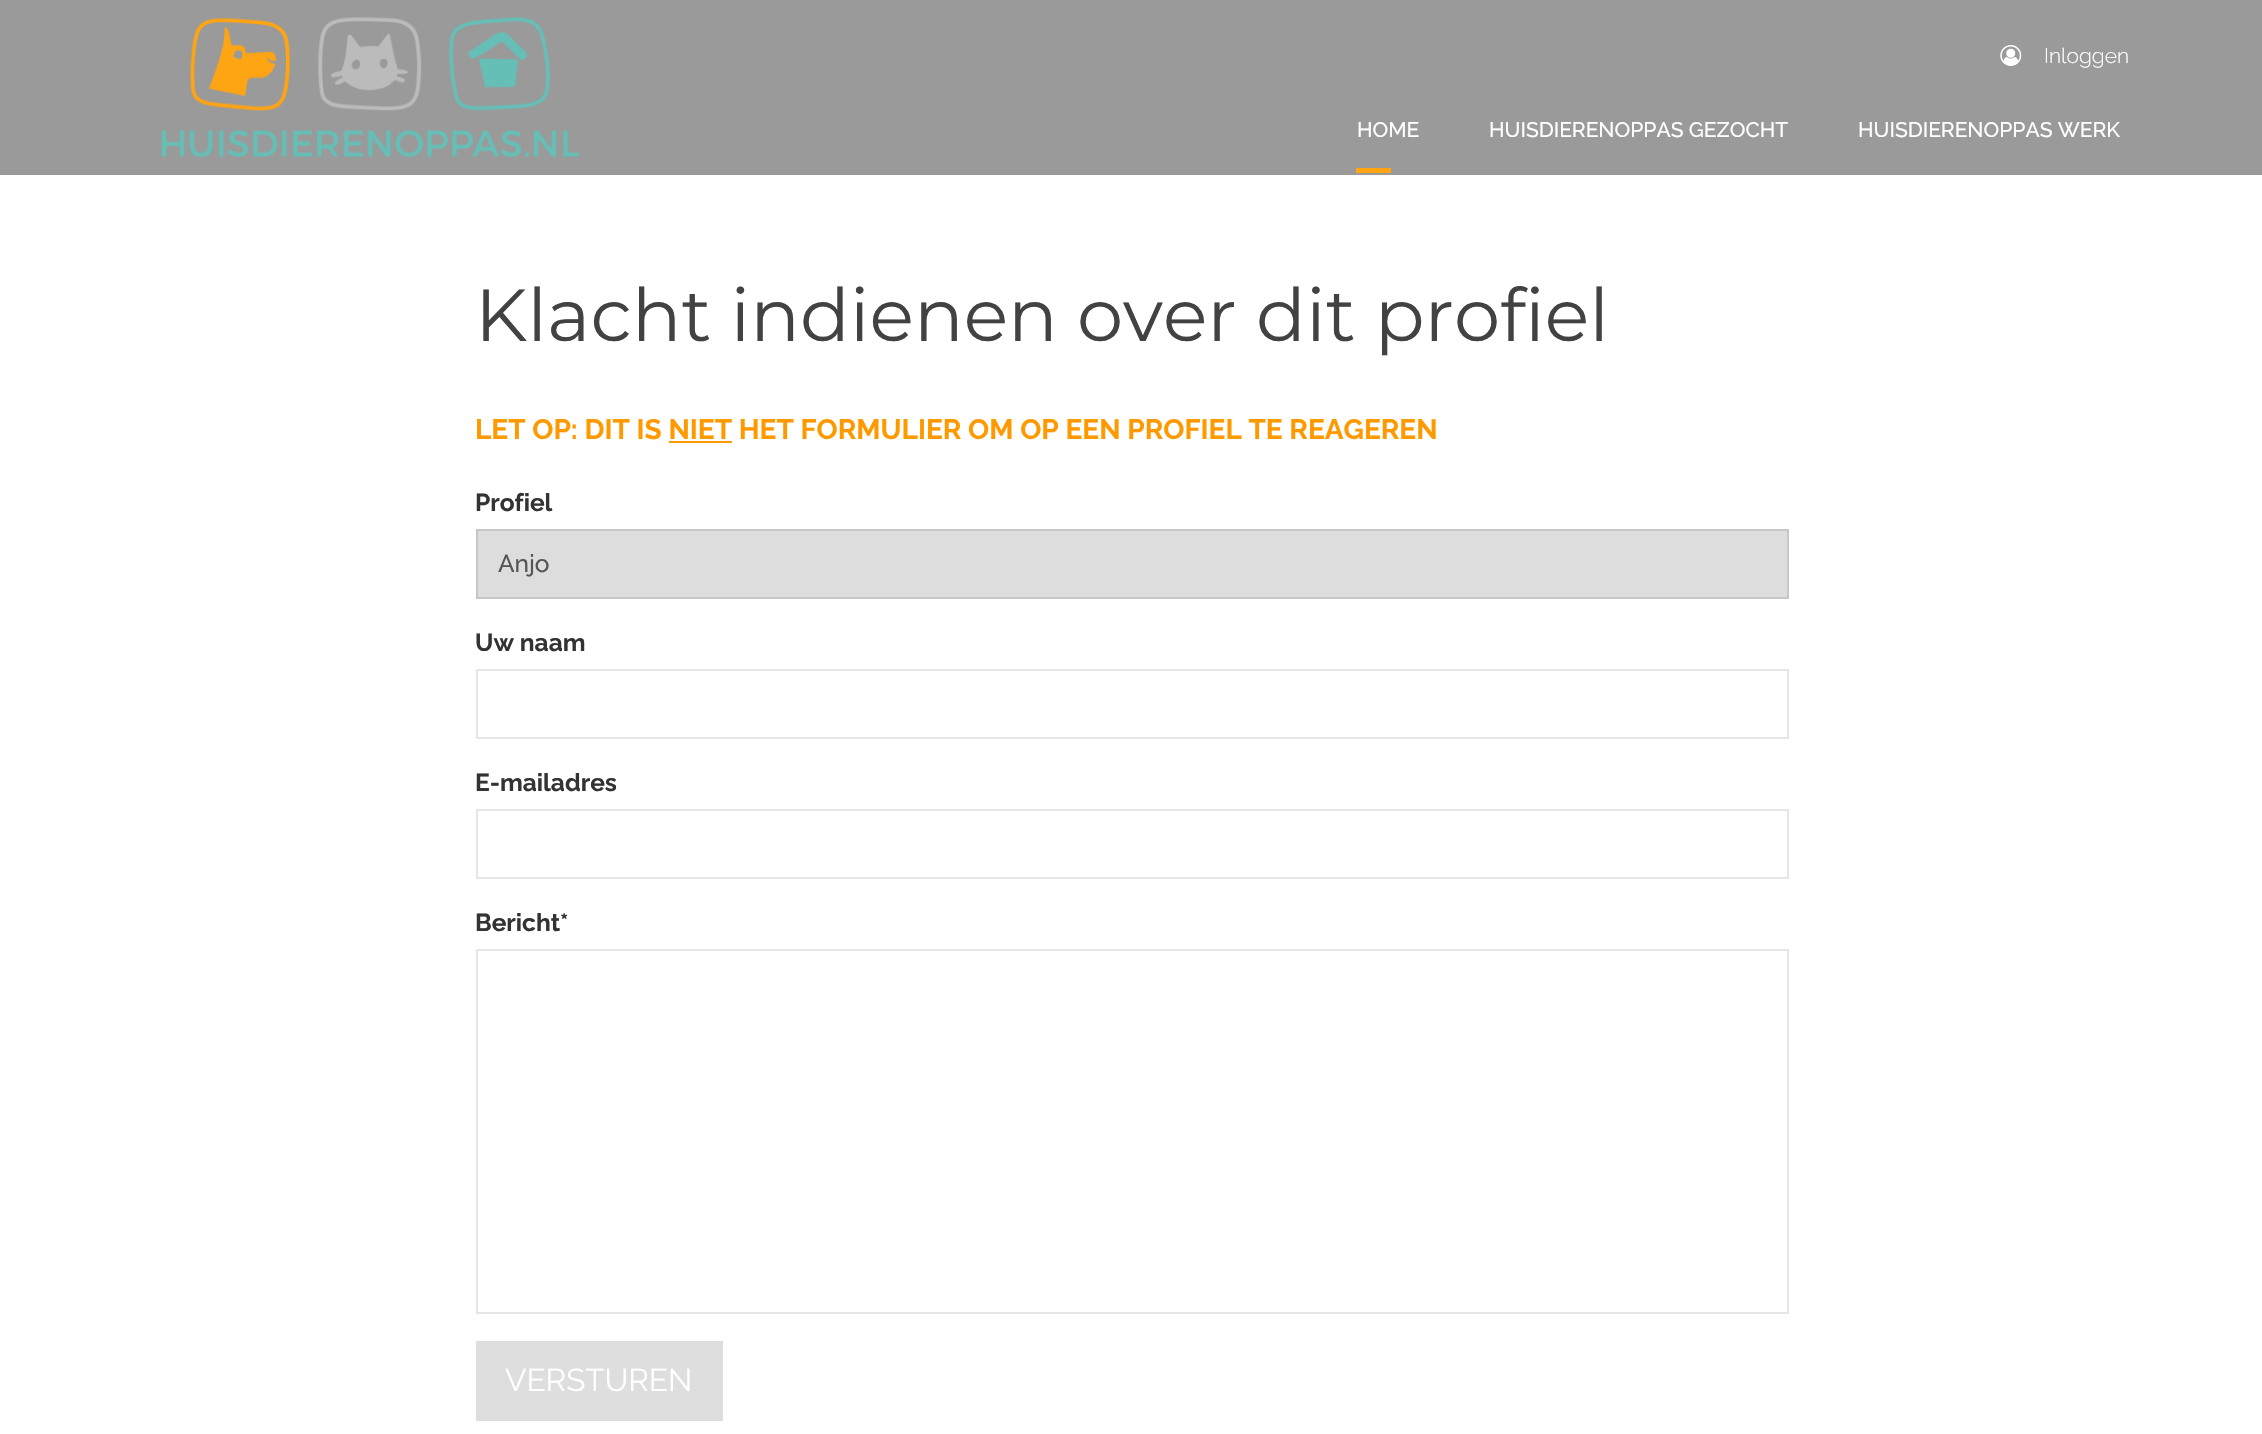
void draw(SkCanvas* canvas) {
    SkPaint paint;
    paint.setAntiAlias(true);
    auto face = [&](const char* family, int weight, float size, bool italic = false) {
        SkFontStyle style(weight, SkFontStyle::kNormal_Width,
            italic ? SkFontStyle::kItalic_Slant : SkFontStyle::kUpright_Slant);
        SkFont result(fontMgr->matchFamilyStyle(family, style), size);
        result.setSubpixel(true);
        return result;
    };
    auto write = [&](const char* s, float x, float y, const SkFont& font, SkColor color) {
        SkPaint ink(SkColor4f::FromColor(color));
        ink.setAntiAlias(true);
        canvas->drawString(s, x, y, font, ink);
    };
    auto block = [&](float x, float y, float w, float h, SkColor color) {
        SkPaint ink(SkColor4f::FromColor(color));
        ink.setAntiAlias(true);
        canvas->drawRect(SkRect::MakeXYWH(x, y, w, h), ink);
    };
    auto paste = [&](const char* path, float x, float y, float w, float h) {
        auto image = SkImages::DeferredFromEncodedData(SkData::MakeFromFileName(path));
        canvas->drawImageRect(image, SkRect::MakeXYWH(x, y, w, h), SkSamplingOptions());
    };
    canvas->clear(SK_ColorWHITE);
    block(0, 0, 2262, 175, SkColorSetRGB(154, 154, 154));
    paste("pic1.png", 161, 17, 419, 141);
    paste("pic2.png", 2000, 45, 22, 21);
    auto kFont1 = face("Raleway", 300, 21);
    write("Inloggen", 2044, 63, kFont1, SK_ColorWHITE);
    auto kFont2 = face("Raleway", 500, 21);
    write("HOME", 1357, 137, kFont2, SK_ColorWHITE);
    block(1356, 168, 35, 5, SkColorSetRGB(255, 164, 18));
    write("HUISDIERENOPPAS GEZOCHT", 1489, 137, kFont2, SK_ColorWHITE);
    write("HUISDIERENOPPAS WERK", 1858, 137, kFont2, SK_ColorWHITE);
    auto kFont3 = face("Montserrat", 400, 73.5f);
    write("Klacht indienen over dit profiel", 475, 341, kFont3, SkColorSetRGB(66, 66, 66));
    auto kFont4 = face("Raleway", 700, 28);
    write("LET OP: DIT IS NIET HET FORMULIER OM OP EEN PROFIEL TE REAGEREN", 475, 439, kFont4, SkColorSetRGB(255, 153, 0));
    block(669, 441, 63, 2, SkColorSetRGB(255, 153, 0));
    auto kFont5 = face("Raleway", 700, 24.5f);
    write("Profiel", 475, 511, kFont5, SkColorSetRGB(51, 51, 51));
    paint.setColor(SkColorSetRGB(221, 221, 221));
    canvas->drawRect(SkRect::MakeXYWH(477, 530, 1311, 68), paint);
    paint.setStyle(SkPaint::kStroke_Style);
    paint.setStrokeWidth(2);
    paint.setColor(SkColorSetRGB(199, 199, 199));
    canvas->drawRect(SkRect::MakeXYWH(477, 530, 1311, 68), paint);
    auto kFont6 = face("Raleway", 500, 24.5f);
    write("Anjo", 498, 572, kFont6, SkColorSetRGB(85, 85, 85));
    write("Uw naam", 475, 651, kFont5, SkColorSetRGB(51, 51, 51));
    paint.setColor(SkColorSetRGB(230, 230, 230));
    canvas->drawRect(SkRect::MakeXYWH(477, 670, 1311, 68), paint);
    write("E-mailadres", 475, 791, kFont5, SkColorSetRGB(51, 51, 51));
    canvas->drawRect(SkRect::MakeXYWH(477, 810, 1311, 68), paint);
    write("Bericht*", 475, 931, kFont5, SkColorSetRGB(51, 51, 51));
    canvas->drawRect(SkRect::MakeXYWH(477, 950, 1311, 363), paint);
    block(476, 1341, 247, 80, SkColorSetRGB(222, 222, 222));
    auto kFont7 = face("Raleway", 400, 31.5f);
    write("VERSTUREN", 505, 1391, kFont7, SK_ColorWHITE);
}
